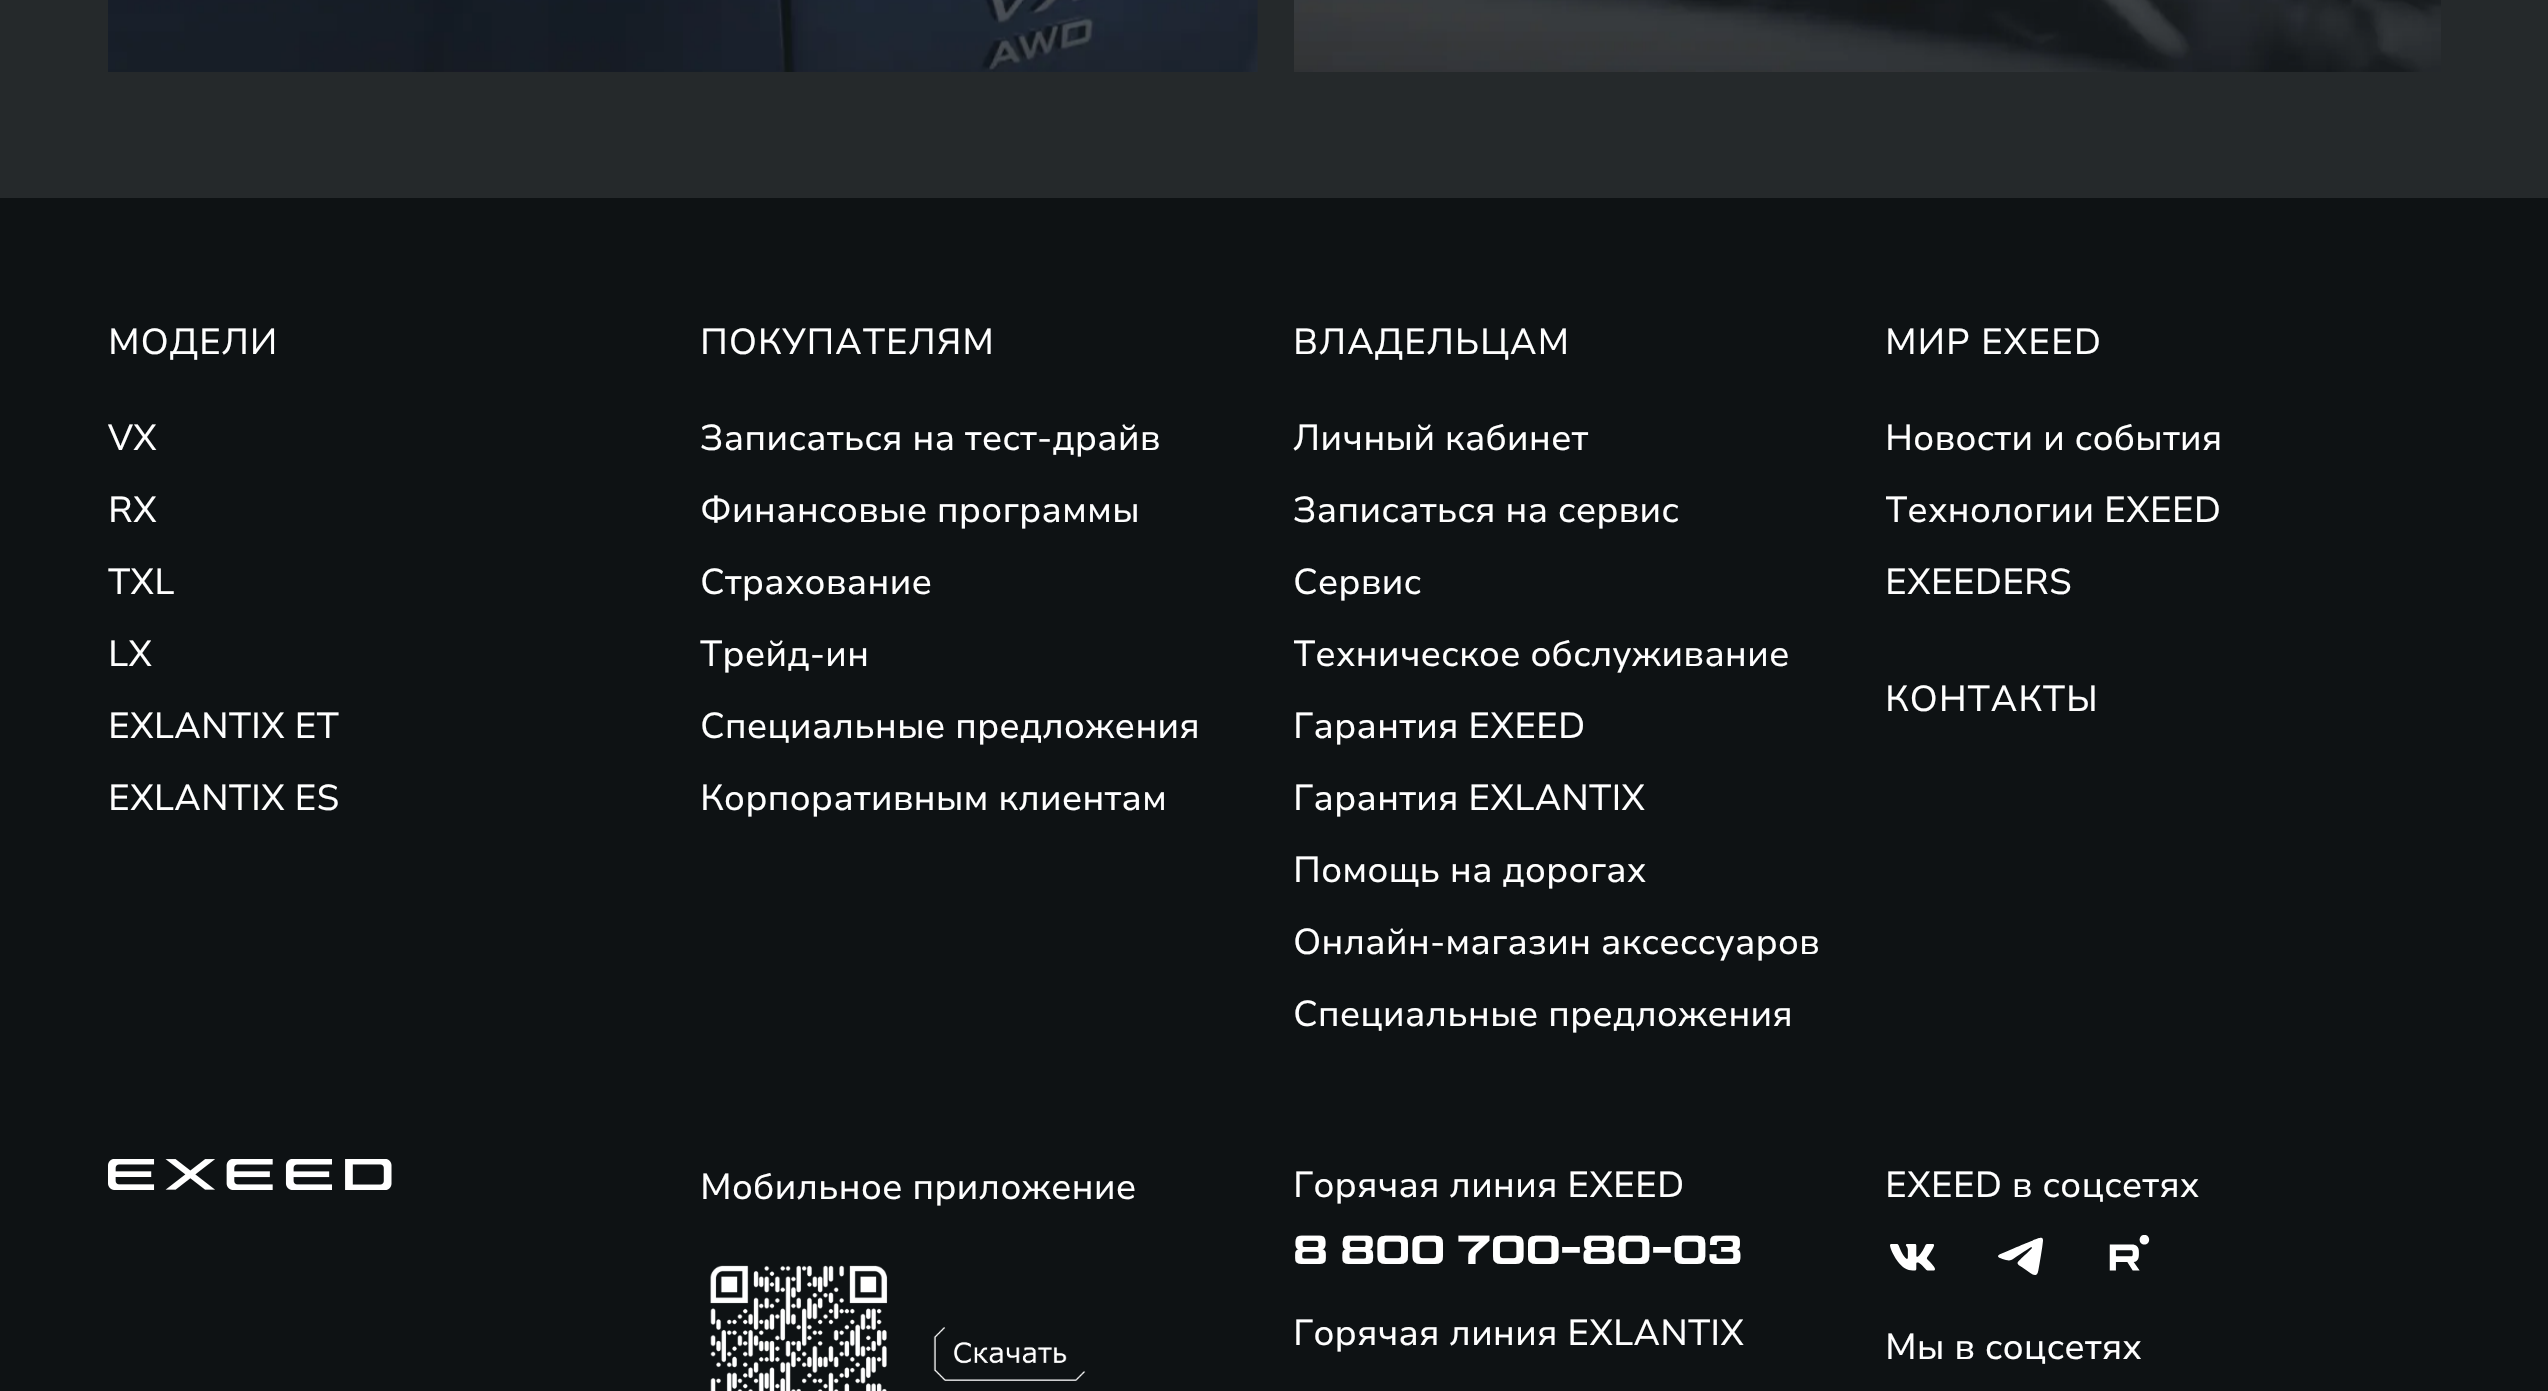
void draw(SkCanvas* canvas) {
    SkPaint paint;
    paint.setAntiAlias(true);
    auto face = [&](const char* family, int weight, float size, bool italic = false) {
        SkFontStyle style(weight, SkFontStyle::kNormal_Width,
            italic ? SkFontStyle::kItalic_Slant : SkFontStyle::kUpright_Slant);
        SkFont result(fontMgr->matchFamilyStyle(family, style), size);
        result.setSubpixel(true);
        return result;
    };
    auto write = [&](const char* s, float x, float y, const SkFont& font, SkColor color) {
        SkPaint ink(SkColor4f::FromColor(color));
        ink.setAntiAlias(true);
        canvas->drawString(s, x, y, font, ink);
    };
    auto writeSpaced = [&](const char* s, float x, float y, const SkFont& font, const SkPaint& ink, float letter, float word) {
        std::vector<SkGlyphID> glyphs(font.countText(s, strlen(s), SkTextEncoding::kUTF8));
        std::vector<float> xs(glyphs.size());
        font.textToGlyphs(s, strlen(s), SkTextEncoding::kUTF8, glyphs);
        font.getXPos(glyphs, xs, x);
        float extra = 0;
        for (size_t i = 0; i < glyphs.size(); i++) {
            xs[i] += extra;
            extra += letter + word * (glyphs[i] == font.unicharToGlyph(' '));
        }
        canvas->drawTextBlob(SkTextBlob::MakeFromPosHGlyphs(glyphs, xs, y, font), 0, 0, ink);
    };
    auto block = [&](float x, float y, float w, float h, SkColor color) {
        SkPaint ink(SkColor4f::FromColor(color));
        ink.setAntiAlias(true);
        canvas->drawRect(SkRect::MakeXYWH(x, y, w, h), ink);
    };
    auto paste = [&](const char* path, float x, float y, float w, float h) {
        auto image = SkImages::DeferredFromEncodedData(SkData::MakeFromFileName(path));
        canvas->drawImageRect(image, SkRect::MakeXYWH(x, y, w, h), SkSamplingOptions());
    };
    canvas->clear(SkColorSetRGB(14, 18, 20));
    block(0, 0, 2548, 198, SkColorSetRGB(37, 41, 43));
    paste("pic1.png", 108, 0, 1150, 72);
    paste("pic2.png", 1294, 0, 1147, 72);
    auto kFont1 = face("Nunito Sans", 400, 36);
    paint.setColor(SK_ColorWHITE);
    writeSpaced("МОДЕЛИ", 108, 354, kFont1, paint, 0.75f, 0);
    write("VX", 108, 450, kFont1, SK_ColorWHITE);
    write("RX", 108, 522, kFont1, SK_ColorWHITE);
    write("TXL", 108, 594, kFont1, SK_ColorWHITE);
    write("LX", 108, 666, kFont1, SK_ColorWHITE);
    write("EXLANTIX ET", 108, 738, kFont1, SK_ColorWHITE);
    write("EXLANTIX ES", 108, 810, kFont1, SK_ColorWHITE);
    writeSpaced("ПОКУПАТЕЛЯМ", 700, 354, kFont1, paint, 0.75f, 0);
    write("Записаться на тест-драйв", 700, 450, kFont1, SK_ColorWHITE);
    write("Финансовые программы", 700, 522, kFont1, SK_ColorWHITE);
    write("Страхование", 700, 594, kFont1, SK_ColorWHITE);
    write("Трейд-ин", 700, 666, kFont1, SK_ColorWHITE);
    write("Специальные предложения", 700, 738, kFont1, SK_ColorWHITE);
    write("Корпоративным клиентам", 700, 810, kFont1, SK_ColorWHITE);
    writeSpaced("ВЛАДЕЛЬЦАМ", 1293, 354, kFont1, paint, 0.75f, 0);
    write("Личный кабинет", 1293, 450, kFont1, SK_ColorWHITE);
    write("Записаться на сервис", 1293, 522, kFont1, SK_ColorWHITE);
    write("Сервис", 1293, 594, kFont1, SK_ColorWHITE);
    canvas->save();
    canvas->clipRect(SkRect::MakeXYWH(1294, 421, 556, 612));
    write("Техническое обслуживание", 1293, 666, kFont1, SK_ColorWHITE);
    canvas->restore();
    write("Гарантия EXEED", 1293, 738, kFont1, SK_ColorWHITE);
    write("Гарантия EXLANTIX", 1293, 810, kFont1, SK_ColorWHITE);
    write("Помощь на дорогах", 1293, 882, kFont1, SK_ColorWHITE);
    write("Онлайн-магазин аксессуаров", 1293, 954, kFont1, SK_ColorWHITE);
    write("Специальные предложения", 1293, 1026, kFont1, SK_ColorWHITE);
    writeSpaced("МИР EXEED", 1885, 354, kFont1, paint, 0.75f, 0);
    write("Новости и события", 1885, 450, kFont1, SK_ColorWHITE);
    canvas->save();
    canvas->clipRect(SkRect::MakeXYWH(1886, 421, 555, 180));
    write("Технологии EXEED", 1885, 522, kFont1, SK_ColorWHITE);
    canvas->restore();
    write("EXEEDERS", 1885, 594, kFont1, SK_ColorWHITE);
    writeSpaced("КОНТАКТЫ", 1885, 711, kFont1, paint, 0.75f, 0);
    paste("pic3.png", 108, 1159, 284, 31);
    write("Мобильное приложение", 700, 1199, kFont1, SK_ColorWHITE);
    paste("pic4.png", 710, 1265, 178, 126);
    paste("pic5.png", 933, 1327, 153, 54);
    write("Горячая линия EXEED", 1293, 1197, kFont1, SK_ColorWHITE);
    auto kFont2 = face("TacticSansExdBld", 400, 40.5f);
    write("8 800 700-80-03", 1293, 1264, kFont2, SK_ColorWHITE);
    write("Горячая линия EXLANTIX", 1293, 1345, kFont1, SK_ColorWHITE);
    write("EXEED в соцсетях", 1885, 1197, kFont1, SK_ColorWHITE);
    paste("pic6.png", 1890, 1244, 45, 27);
    paste("pic7.png", 1998, 1237, 45, 38);
    paste("pic8.png", 2109, 1235, 41, 36);
    write("Мы в соцсетях", 1885, 1359, kFont1, SK_ColorWHITE);
}
